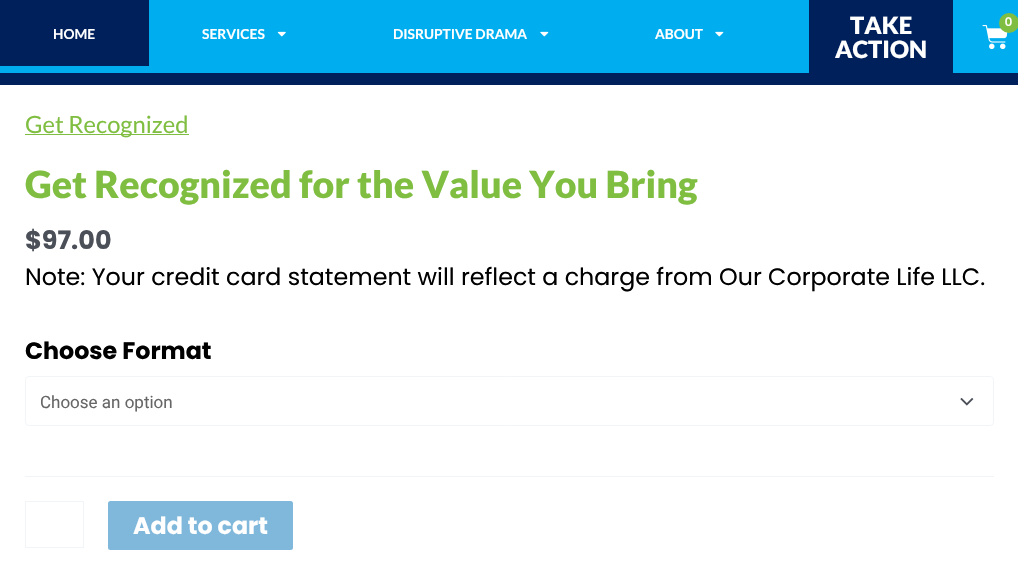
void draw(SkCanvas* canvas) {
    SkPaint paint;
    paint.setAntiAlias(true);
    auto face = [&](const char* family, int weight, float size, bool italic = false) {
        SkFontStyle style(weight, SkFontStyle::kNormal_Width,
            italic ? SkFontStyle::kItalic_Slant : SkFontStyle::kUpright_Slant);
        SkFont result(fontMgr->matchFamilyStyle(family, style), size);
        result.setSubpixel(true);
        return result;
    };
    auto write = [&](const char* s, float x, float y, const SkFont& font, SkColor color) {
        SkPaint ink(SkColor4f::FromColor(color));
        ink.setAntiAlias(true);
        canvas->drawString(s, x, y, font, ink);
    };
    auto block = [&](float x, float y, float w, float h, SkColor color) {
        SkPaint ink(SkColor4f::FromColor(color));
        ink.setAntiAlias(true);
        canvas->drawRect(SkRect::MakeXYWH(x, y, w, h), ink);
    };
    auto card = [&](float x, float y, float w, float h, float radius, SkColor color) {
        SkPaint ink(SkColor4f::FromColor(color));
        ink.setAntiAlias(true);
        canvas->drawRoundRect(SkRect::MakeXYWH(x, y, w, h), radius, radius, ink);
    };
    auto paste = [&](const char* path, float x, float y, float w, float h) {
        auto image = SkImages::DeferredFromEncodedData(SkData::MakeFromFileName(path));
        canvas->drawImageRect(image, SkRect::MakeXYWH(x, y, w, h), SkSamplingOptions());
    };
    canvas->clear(SK_ColorWHITE);
    block(0, 0, 1018, 73, SkColorSetRGB(0, 174, 239));
    block(0, 73, 1018, 12, SkColorSetRGB(0, 32, 91));
    block(809, 0, 144, 73, SkColorSetRGB(0, 32, 91));
    auto kFont1 = face("Lato", 900, 23.75f);
    write("TAKE", 850, 34, kFont1, SK_ColorWHITE);
    write("ACTION", 835, 58, kFont1, SK_ColorWHITE);
    paste("pic1.png", 982, 25, 26, 25);
    paint.setColor(SkColorSetRGB(127, 190, 65));
    canvas->drawCircle(1009, 23, 10, paint);
    auto kFont2 = face("Lato", 700, 12);
    write("0", 1005, 26, kFont2, SK_ColorWHITE);
    block(0, 0, 149, 66, SkColorSetRGB(0, 32, 91));
    auto kFont3 = face("Lato", 700, 13.75f);
    write("HOME", 53, 39, kFont3, SK_ColorWHITE);
    write("SERVICES", 202, 39, kFont3, SK_ColorWHITE);
    paste("pic2.png", 277, 31, 9, 6);
    write("DISRUPTIVE DRAMA", 393, 39, kFont3, SK_ColorWHITE);
    paste("pic3.png", 540, 31, 9, 6);
    write("ABOUT", 655, 39, kFont3, SK_ColorWHITE);
    paste("pic3.png", 715, 31, 9, 6);
    block(25, 134, 164, 1, SkColorSetRGB(127, 190, 65));
    auto kFont4 = face("Lato", 400, 23.75f);
    write("Get Recognized", 25, 133, kFont4, SkColorSetRGB(127, 190, 65));
    auto kFont5 = face("Lato", 900, 37.5f);
    write("Get Recognized for the Value You Bring", 25, 198, kFont5, SkColorSetRGB(127, 190, 65));
    auto kFont6 = face("Poppins", 700, 25.5f);
    write("$97.00", 25, 249, kFont6, SkColorSetRGB(75, 79, 88));
    auto kFont7 = face("Poppins", 400, 23.75f);
    write("Note: Your credit card statement will reflect a charge from Our Corporate Life LLC.", 25, 285, kFont7, SK_ColorBLACK);
    block(25, 476, 969, 1, SkColorSetRGB(242, 245, 247));
    auto kFont8 = face("Poppins", 700, 23.75f);
    write("Choose Format", 25, 359, kFont8, SK_ColorBLACK);
    paste("pic4.png", 960, 398, 14, 8);
    paint.setStyle(SkPaint::kStroke_Style);
    paint.setStrokeWidth(1);
    paint.setColor(SkColorSetRGB(242, 245, 247));
    canvas->drawRoundRect(SkRect::MakeXYWH(25.5f, 376.5f, 968, 49), 3.5f, 3.5f, paint);
    auto kFont9 = face("Roboto", 400, 17);
    write("Choose an option", 40, 408, kFont9, SkColorSetRGB(102, 102, 102));
    canvas->drawRect(SkRect::MakeXYWH(25.5f, 501.5f, 58, 46), paint);
    card(108, 501, 185, 49, 2.5f, SkColorSetRGB(128, 184, 220));
    write("Add to cart", 133, 534, kFont8, SK_ColorWHITE);
}
